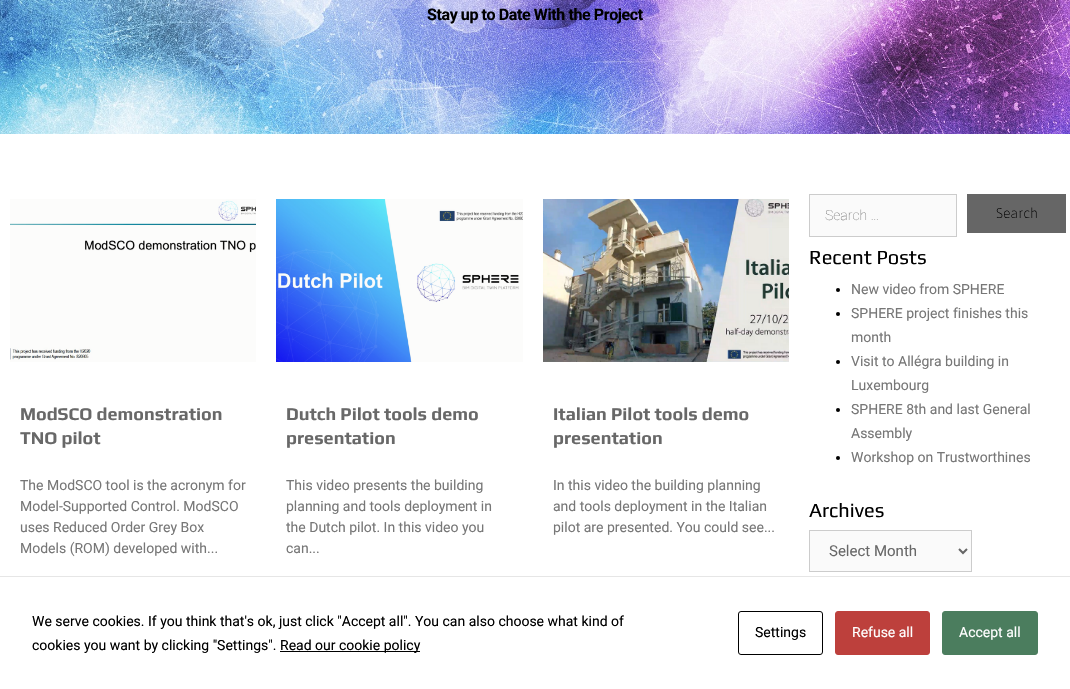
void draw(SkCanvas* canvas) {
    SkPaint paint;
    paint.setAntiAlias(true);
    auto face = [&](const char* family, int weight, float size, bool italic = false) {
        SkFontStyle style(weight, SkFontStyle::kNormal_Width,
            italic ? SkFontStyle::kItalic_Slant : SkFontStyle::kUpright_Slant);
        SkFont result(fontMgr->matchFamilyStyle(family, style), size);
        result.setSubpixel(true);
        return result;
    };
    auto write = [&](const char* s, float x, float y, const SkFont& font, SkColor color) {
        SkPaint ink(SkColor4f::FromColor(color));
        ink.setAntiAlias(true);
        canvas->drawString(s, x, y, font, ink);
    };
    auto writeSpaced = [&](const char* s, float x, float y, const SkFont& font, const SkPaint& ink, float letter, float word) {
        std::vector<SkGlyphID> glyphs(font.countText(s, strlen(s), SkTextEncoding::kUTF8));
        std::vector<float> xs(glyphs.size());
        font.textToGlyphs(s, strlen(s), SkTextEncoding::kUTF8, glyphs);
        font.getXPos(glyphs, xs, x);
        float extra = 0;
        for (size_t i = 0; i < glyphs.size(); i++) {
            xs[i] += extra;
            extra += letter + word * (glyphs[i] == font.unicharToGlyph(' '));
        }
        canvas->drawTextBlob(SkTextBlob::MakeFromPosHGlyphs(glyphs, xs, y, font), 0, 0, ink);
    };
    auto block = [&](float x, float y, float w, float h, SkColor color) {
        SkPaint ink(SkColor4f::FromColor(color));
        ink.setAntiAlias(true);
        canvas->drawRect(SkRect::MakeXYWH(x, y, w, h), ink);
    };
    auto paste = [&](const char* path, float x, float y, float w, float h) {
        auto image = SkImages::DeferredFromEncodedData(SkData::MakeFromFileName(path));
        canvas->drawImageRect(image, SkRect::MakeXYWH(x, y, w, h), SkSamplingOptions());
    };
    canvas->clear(SK_ColorWHITE);
    paste("pic1.png", 0, 0, 1070, 134);
    auto kFont1 = face("Roboto", 700, 16);
    paint.setColor(SK_ColorBLACK);
    writeSpaced("Stay up to Date With the Project", 427, 20, kFont1, paint, -0.4f, 0);
    paste("pic2.png", 10, 199, 246, 163);
    auto kFont2 = face("Play", 700, 18);
    write("ModSCO demonstration", 20, 420, kFont2, SkColorSetRGB(104, 104, 104));
    write("TNO pilot", 20, 444, kFont2, SkColorSetRGB(104, 104, 104));
    auto kFont3 = face("Roboto", 400, 14);
    write("The ModSCO tool is the acronym for", 20, 490, kFont3, SkColorSetRGB(119, 119, 119));
    write("Model-Supported Control. ModSCO", 20, 511, kFont3, SkColorSetRGB(119, 119, 119));
    write("uses Reduced Order Grey Box", 20, 532, kFont3, SkColorSetRGB(119, 119, 119));
    write("Models (ROM) developed with...", 20, 553, kFont3, SkColorSetRGB(119, 119, 119));
    paste("pic3.png", 276, 199, 247, 163);
    write("Dutch Pilot tools demo", 286, 420, kFont2, SkColorSetRGB(104, 104, 104));
    write("presentation", 286, 444, kFont2, SkColorSetRGB(104, 104, 104));
    write("This video presents the building", 286, 490, kFont3, SkColorSetRGB(119, 119, 119));
    write("planning and tools deployment in", 286, 511, kFont3, SkColorSetRGB(119, 119, 119));
    write("the Dutch pilot. In this video you", 286, 532, kFont3, SkColorSetRGB(119, 119, 119));
    write("can...", 286, 553, kFont3, SkColorSetRGB(119, 119, 119));
    paste("pic4.png", 543, 199, 246, 163);
    write("Italian Pilot tools demo", 553, 420, kFont2, SkColorSetRGB(104, 104, 104));
    write("presentation", 553, 444, kFont2, SkColorSetRGB(104, 104, 104));
    write("In this video the building planning", 553, 490, kFont3, SkColorSetRGB(119, 119, 119));
    write("and tools deployment in the Italian", 553, 511, kFont3, SkColorSetRGB(119, 119, 119));
    write("pilot are presented. You could see...", 553, 532, kFont3, SkColorSetRGB(119, 119, 119));
    paint.setColor(SkColorSetRGB(250, 250, 250));
    canvas->drawRect(SkRect::MakeXYWH(809.5f, 194.5f, 147, 42), paint);
    paint.setStyle(SkPaint::kStroke_Style);
    paint.setStrokeWidth(1);
    paint.setColor(SkColorSetRGB(204, 204, 204));
    canvas->drawRect(SkRect::MakeXYWH(809.5f, 194.5f, 147, 42), paint);
    auto kFont4 = face("Roboto", 100, 14);
    write("Search …", 825, 220, kFont4, SkColorSetRGB(119, 119, 119));
    block(967, 194, 99, 39, SkColorSetRGB(102, 102, 102));
    auto kFont5 = face("Asap", 100, 14);
    write("Search", 996, 218, kFont5, SK_ColorBLACK);
    auto kFont6 = face("Play", 400, 20);
    write("Recent Posts", 809, 264, kFont6, SK_ColorBLACK);
    paint.setStyle(SkPaint::kFill_Style);
    paint.setColor(SK_ColorBLACK);
    canvas->drawCircle(838, 290, 2, paint);
    write("New video from SPHERE", 851, 294, kFont3, SkColorSetRGB(119, 119, 119));
    canvas->drawCircle(838, 314, 2, paint);
    write("SPHERE project finishes this", 851, 318, kFont3, SkColorSetRGB(119, 119, 119));
    write("month", 851, 342, kFont3, SkColorSetRGB(119, 119, 119));
    canvas->drawCircle(838, 362, 2, paint);
    write("Visit to Allégra building in", 851, 366, kFont3, SkColorSetRGB(119, 119, 119));
    write("Luxembourg", 851, 390, kFont3, SkColorSetRGB(119, 119, 119));
    canvas->drawCircle(838, 410, 2, paint);
    write("SPHERE 8th and last General", 851, 414, kFont3, SkColorSetRGB(119, 119, 119));
    write("Assembly", 851, 438, kFont3, SkColorSetRGB(119, 119, 119));
    canvas->drawCircle(838, 458, 2, paint);
    write("Workshop on Trustworthines", 851, 462, kFont3, SkColorSetRGB(119, 119, 119));
    write("Archives", 809, 517, kFont6, SK_ColorBLACK);
    paint.setColor(SkColorSetRGB(250, 250, 250));
    canvas->drawRect(SkRect::MakeXYWH(809.5f, 530.5f, 162, 41), paint);
    paint.setStyle(SkPaint::kStroke_Style);
    paint.setColor(SkColorSetRGB(204, 204, 204));
    canvas->drawRect(SkRect::MakeXYWH(809.5f, 530.5f, 162, 41), paint);
    paint.setStrokeWidth(2);
    paint.setColor(SkColorSetRGB(102, 102, 102));
    canvas->drawPath(SkPathBuilder().moveTo(959, 549).lineTo(963, 553).lineTo(967, 549).detach(), paint);
    auto kFont7 = face("Roboto", 400, 15);
    write("Select Month", 829, 556, kFont7, SkColorSetRGB(104, 104, 104));
    block(0, 576, 1070, 1, SkColorSetRGB(230, 230, 230));
    write("We serve cookies. If you think that's ok, just click \"Accept all\". You can also choose what kind of", 32, 626, kFont3, SK_ColorBLACK);
    write("cookies you want by clicking \"Settings\".", 32, 650, kFont3, SK_ColorBLACK);
    block(280, 651, 140, 1, SK_ColorBLACK);
    write("Read our cookie policy", 280, 650, kFont3, SK_ColorBLACK);
    paint.setStrokeWidth(1);
    paint.setColor(SK_ColorBLACK);
    canvas->drawRoundRect(SkRect::MakeXYWH(738.5f, 611.5f, 84, 43), 2.5f, 2.5f, paint);
    write("Settings", 755, 637, kFont3, SK_ColorBLACK);
    paint.setStyle(SkPaint::kFill_Style);
    paint.setColor(SkColorSetRGB(189, 64, 60));
    canvas->drawRoundRect(SkRect::MakeXYWH(835.5f, 611.5f, 94, 43), 2.5f, 2.5f, paint);
    paint.setStyle(SkPaint::kStroke_Style);
    canvas->drawRoundRect(SkRect::MakeXYWH(835.5f, 611.5f, 94, 43), 2.5f, 2.5f, paint);
    write("Refuse all", 852, 637, kFont3, SK_ColorWHITE);
    paint.setStyle(SkPaint::kFill_Style);
    paint.setColor(SkColorSetRGB(75, 125, 94));
    canvas->drawRoundRect(SkRect::MakeXYWH(942.5f, 611.5f, 95, 43), 2.5f, 2.5f, paint);
    paint.setStyle(SkPaint::kStroke_Style);
    canvas->drawRoundRect(SkRect::MakeXYWH(942.5f, 611.5f, 95, 43), 2.5f, 2.5f, paint);
    write("Accept all", 959, 637, kFont3, SK_ColorWHITE);
}
